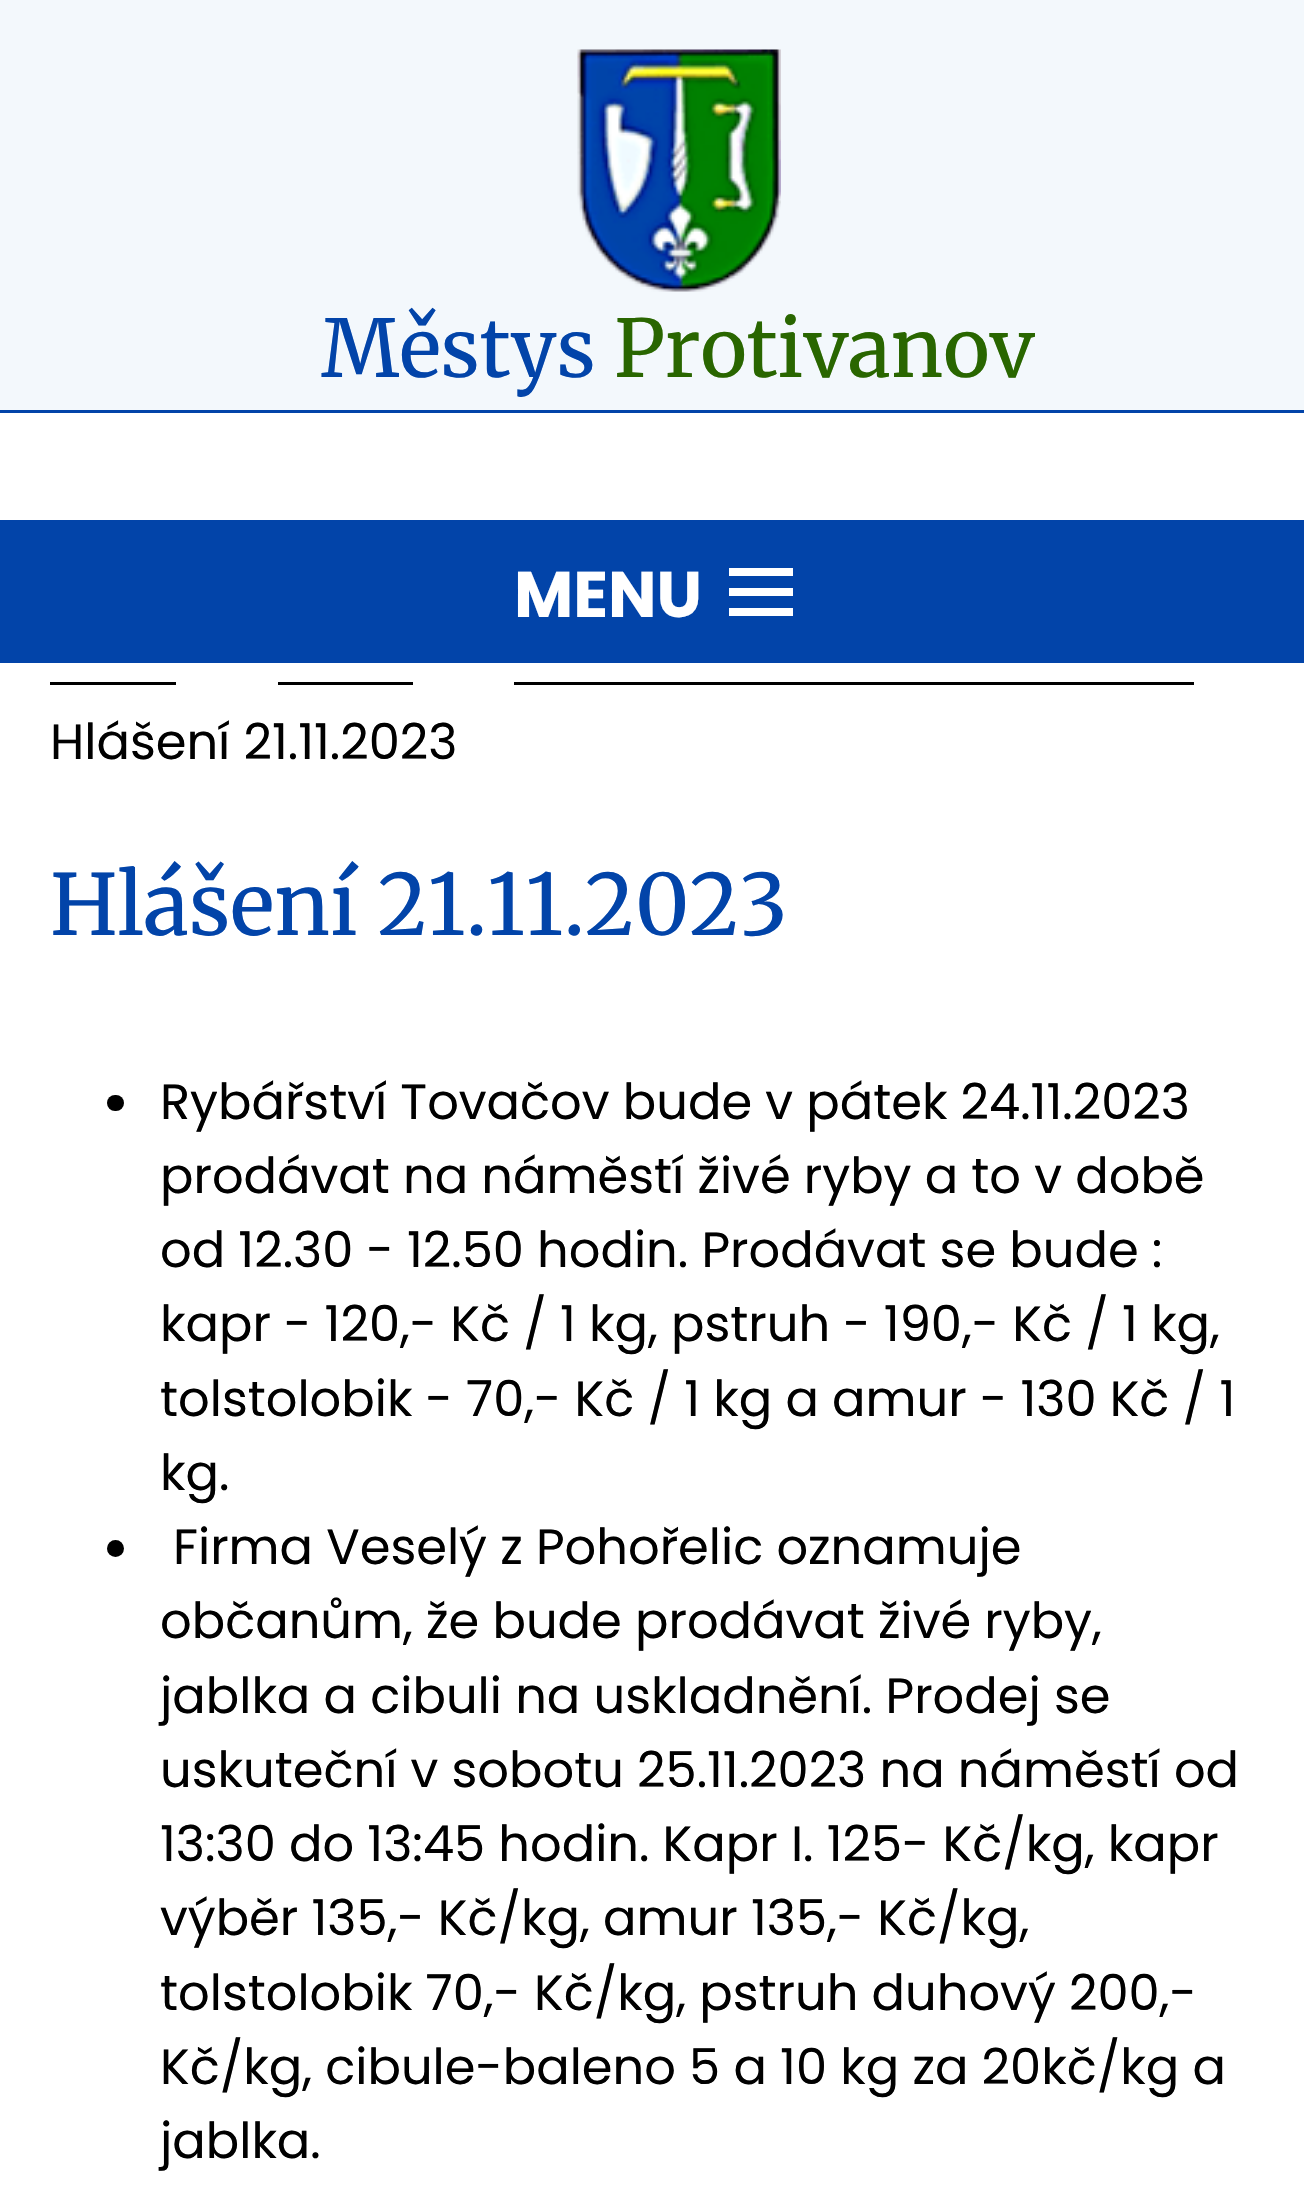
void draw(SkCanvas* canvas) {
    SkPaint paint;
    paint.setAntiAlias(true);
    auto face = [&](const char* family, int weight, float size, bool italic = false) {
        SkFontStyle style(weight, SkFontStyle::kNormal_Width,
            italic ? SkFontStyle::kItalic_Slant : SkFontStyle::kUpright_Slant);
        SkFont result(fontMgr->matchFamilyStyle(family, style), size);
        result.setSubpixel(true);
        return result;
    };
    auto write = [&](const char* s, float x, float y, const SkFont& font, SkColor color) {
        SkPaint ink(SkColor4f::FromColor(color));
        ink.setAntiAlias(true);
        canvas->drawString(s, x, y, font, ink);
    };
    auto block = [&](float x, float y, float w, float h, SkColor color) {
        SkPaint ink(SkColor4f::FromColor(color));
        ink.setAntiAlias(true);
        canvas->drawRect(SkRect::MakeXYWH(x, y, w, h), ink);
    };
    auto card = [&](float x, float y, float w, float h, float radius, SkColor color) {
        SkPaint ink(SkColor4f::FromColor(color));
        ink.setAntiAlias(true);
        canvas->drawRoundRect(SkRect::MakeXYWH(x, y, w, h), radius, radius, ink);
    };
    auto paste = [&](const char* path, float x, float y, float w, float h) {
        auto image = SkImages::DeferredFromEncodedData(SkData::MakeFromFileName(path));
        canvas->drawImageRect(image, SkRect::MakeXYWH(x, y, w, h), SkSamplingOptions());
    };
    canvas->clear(SK_ColorWHITE);
    block(0, 0, 1304, 410, SkColorSetRGB(243, 248, 252));
    block(0, 410, 1304, 3, SkColorSetRGB(2, 68, 169));
    paste("pic1.png", 577, 49, 204, 243);
    auto kFont1 = face("Merriweather", 400, 79.25f);
    write("Městys", 321, 377, kFont1, SkColorSetRGB(2, 68, 169));
    write("Protivanov", 614, 377, kFont1, SkColorSetRGB(41, 102, 0));
    block(0, 520, 1304, 143, SkColorSetRGB(2, 68, 169));
    auto kFont2 = face("Poppins", 700, 64.5f);
    write("MENU", 514, 617, kFont2, SK_ColorWHITE);
    paint.setColor(SK_ColorWHITE);
    canvas->drawPath(SkPathBuilder().moveTo(729, 616).lineTo(729, 608).lineTo(793, 608).lineTo(793, 616).close().moveTo(729, 568).lineTo(793, 568).lineTo(793, 576).lineTo(729, 576).close().moveTo(729, 596).lineTo(729, 588).lineTo(793, 588).lineTo(793, 596).close().detach(), paint);
    block(50, 682, 126, 3, SK_ColorBLACK);
    block(278, 682, 135, 3, SK_ColorBLACK);
    block(514, 682, 680, 3, SK_ColorBLACK);
    auto kFont3 = face("Poppins", 400, 49.5f);
    write("Hlášení 21.11.2023", 50, 759, kFont3, SK_ColorBLACK);
    auto kFont4 = face("Merriweather", 400, 84.25f);
    write("Hlášení 21.11.2023", 50, 935, kFont4, SkColorSetRGB(2, 68, 169));
    card(107, 1095, 17, 16, 8, SK_ColorBLACK);
    write("Rybářství Tovačov bude v pátek 24.11.2023", 160, 1119, kFont3, SK_ColorBLACK);
    write("prodávat na náměstí živé ryby a to v době", 160, 1193, kFont3, SK_ColorBLACK);
    write("od 12.30 - 12.50 hodin. Prodávat se bude :", 160, 1267, kFont3, SK_ColorBLACK);
    write("kapr - 120,- Kč / 1 kg, pstruh - 190,- Kč / 1 kg,", 160, 1341, kFont3, SK_ColorBLACK);
    write("tolstolobik - 70,- Kč / 1 kg a amur - 130 Kč / 1", 160, 1416, kFont3, SK_ColorBLACK);
    write("kg.", 160, 1490, kFont3, SK_ColorBLACK);
    paint.setColor(SK_ColorBLACK);
    canvas->drawCircle(115.5f, 1548.5f, 8.5f, paint);
    write("Firma Veselý z Pohořelic oznamuje", 173, 1564, kFont3, SK_ColorBLACK);
    write("občanům, že bude prodávat živé ryby,", 160, 1638, kFont3, SK_ColorBLACK);
    write("jablka a cibuli na uskladnění. Prodej se", 160, 1713, kFont3, SK_ColorBLACK);
    write("uskuteční v sobotu 25.11.2023 na náměstí od", 160, 1787, kFont3, SK_ColorBLACK);
    write("13:30 do 13:45 hodin. Kapr I. 125- Kč/kg, kapr", 160, 1861, kFont3, SK_ColorBLACK);
    write("výběr 135,- Kč/kg, amur 135,- Kč/kg,", 160, 1935, kFont3, SK_ColorBLACK);
    write("tolstolobik 70,- Kč/kg, pstruh duhový 200,-", 160, 2010, kFont3, SK_ColorBLACK);
    write("Kč/kg, cibule-baleno 5 a 10 kg za 20kč/kg a", 160, 2084, kFont3, SK_ColorBLACK);
    write("jablka.", 160, 2158, kFont3, SK_ColorBLACK);
}
